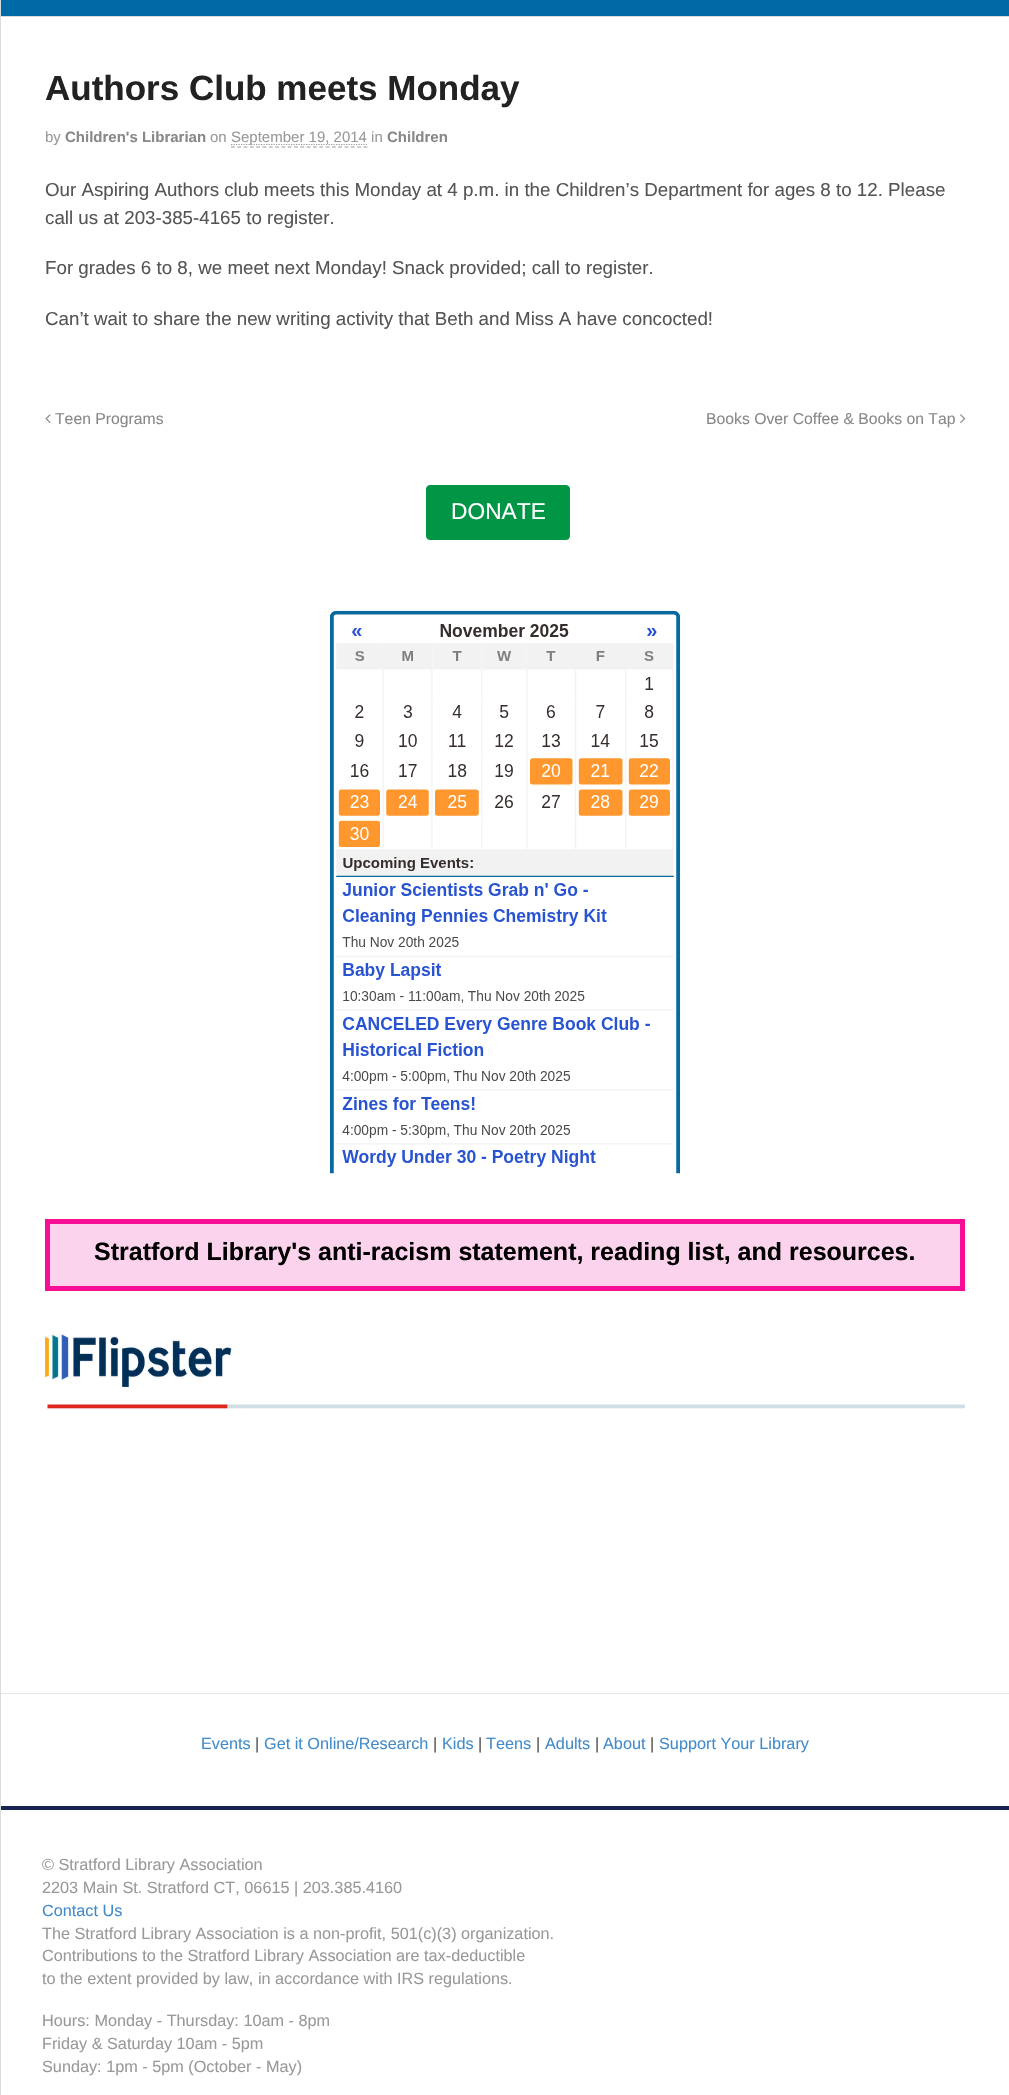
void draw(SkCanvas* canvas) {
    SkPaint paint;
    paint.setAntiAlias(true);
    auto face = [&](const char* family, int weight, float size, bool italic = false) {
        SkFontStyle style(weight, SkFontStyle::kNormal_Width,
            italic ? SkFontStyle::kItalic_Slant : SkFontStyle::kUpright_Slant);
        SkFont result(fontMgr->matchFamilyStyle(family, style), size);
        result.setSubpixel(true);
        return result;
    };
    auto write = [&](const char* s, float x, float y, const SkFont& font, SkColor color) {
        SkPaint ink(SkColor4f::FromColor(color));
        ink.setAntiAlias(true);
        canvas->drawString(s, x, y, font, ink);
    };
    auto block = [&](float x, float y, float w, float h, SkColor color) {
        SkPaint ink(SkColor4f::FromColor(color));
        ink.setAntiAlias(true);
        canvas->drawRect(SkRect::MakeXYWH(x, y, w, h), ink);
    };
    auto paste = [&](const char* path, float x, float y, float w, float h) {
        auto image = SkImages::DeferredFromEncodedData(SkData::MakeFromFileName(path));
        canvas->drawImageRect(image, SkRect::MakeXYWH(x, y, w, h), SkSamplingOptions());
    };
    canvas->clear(SK_ColorWHITE);
    paint.setStyle(SkPaint::kStroke_Style);
    paint.setStrokeWidth(1);
    paint.setColor(SkColorSetRGB(219, 219, 219));
    canvas->drawRect(SkRect::MakeXYWH(0.5f, -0.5f, 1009, 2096), paint);
    block(1, 0, 1008, 16, SkColorSetRGB(0, 106, 166));
    block(1, 16, 1008, 1, SkColorSetRGB(219, 219, 219));
    auto kFont1 = face("Liberation Sans", 700, 35);
    write("Authors Club meets Monday", 45, 100, kFont1, SkColorSetRGB(34, 34, 34));
    auto kFont2 = face("Liberation Sans", 400, 15);
    write("by", 45, 142, kFont2, SkColorSetRGB(153, 153, 153));
    auto kFont3 = face("Liberation Sans", 700, 15);
    write("Children's Librarian", 65, 142, kFont3, SkColorSetRGB(136, 136, 136));
    write("on", 210, 142, kFont2, SkColorSetRGB(153, 153, 153));
    paint.setStrokeWidth(1.2f);
    paint.setColor(SkColorSetRGB(153, 153, 153));
    paint.setPathEffect(SkDashPathEffect::Make({{1.25f, 1.25f}}, 0));
    canvas->drawPath(SkPathBuilder().moveTo(231, 144.5f).lineTo(367, 144.5f).detach(), paint);
    paint.setPathEffect(nullptr);
    write("September 19, 2014 in", 231, 142, kFont2, SkColorSetRGB(153, 153, 153));
    paint.setPathEffect(SkDashPathEffect::Make({{3.75f, 2.56f}}, 0));
    canvas->drawPath(SkPathBuilder().moveTo(231, 147).lineTo(367.5f, 147).detach(), paint);
    paint.setPathEffect(nullptr);
    write("Children", 387, 142, kFont3, SkColorSetRGB(136, 136, 136));
    auto kFont4 = face("Liberation Sans", 400, 18.75f);
    write("Our Aspiring Authors club meets this Monday at 4 p.m. in the Children’s Department for ages 8 to 12. Please", 45, 196, kFont4, SkColorSetRGB(85, 85, 85));
    write("call us at 203-385-4165 to register.", 45, 224, kFont4, SkColorSetRGB(85, 85, 85));
    write("For grades 6 to 8, we meet next Monday! Snack provided; call to register.", 45, 274, kFont4, SkColorSetRGB(85, 85, 85));
    write("Can’t wait to share the new writing activity that Beth and Miss A have concocted!", 45, 325, kFont4, SkColorSetRGB(85, 85, 85));
    paste("pic1.png", 45, 414, 6, 9);
    auto kFont5 = face("Liberation Sans", 400, 15.75f);
    write("Teen Programs", 55, 424, kFont5, SkColorSetRGB(136, 136, 136));
    write("Books Over Coffee & Books on Tap", 706, 424, kFont5, SkColorSetRGB(136, 136, 136));
    paste("pic2.png", 960, 414, 6, 9);
    paint.setStyle(SkPaint::kFill_Style);
    paint.setColor(SkColorSetRGB(1, 150, 69));
    canvas->drawRoundRect(SkRect::MakeXYWH(426.5f, 485.5f, 143, 54), 3.5f, 3.5f, paint);
    paint.setStyle(SkPaint::kStroke_Style);
    paint.setStrokeWidth(1);
    canvas->drawRoundRect(SkRect::MakeXYWH(426.5f, 485.5f, 143, 54), 3.5f, 3.5f, paint);
    auto kFont6 = face("Liberation Sans", 400, 22.75f);
    write("DONATE", 451, 519, kFont6, SK_ColorWHITE);
    paste("pic3.png", 330, 610, 350, 564);
    paint.setStyle(SkPaint::kFill_Style);
    paint.setColor(SkColorSetRGB(251, 211, 237));
    canvas->drawRect(SkRect::MakeXYWH(47.5f, 1221.5f, 915, 67), paint);
    paint.setStyle(SkPaint::kStroke_Style);
    paint.setStrokeWidth(5);
    paint.setColor(SkColorSetRGB(246, 15, 148));
    canvas->drawRect(SkRect::MakeXYWH(47.5f, 1221.5f, 915, 67), paint);
    auto kFont7 = face("Liberation Sans", 700, 25);
    write("Stratford Library's anti-racism statement, reading list, and resources.", 94, 1260, kFont7, SK_ColorBLACK);
    paste("pic4.png", 45, 1334, 187, 53);
    paste("pic5.png", 47, 1404, 918, 5);
    block(1, 1693, 1008, 1, SkColorSetRGB(230, 230, 230));
    auto kFont8 = face("Liberation Sans", 400, 16.25f);
    write("Events", 201, 1749, kFont8, SkColorSetRGB(66, 139, 202));
    write("|", 255, 1749, kFont8, SkColorSetRGB(85, 85, 85));
    write("Get it Online/Research", 264, 1749, kFont8, SkColorSetRGB(66, 139, 202));
    write("|", 433, 1749, kFont8, SkColorSetRGB(85, 85, 85));
    write("Kids", 442, 1749, kFont8, SkColorSetRGB(66, 139, 202));
    write("|", 478, 1749, kFont8, SkColorSetRGB(85, 85, 85));
    write("Teens", 486, 1749, kFont8, SkColorSetRGB(66, 139, 202));
    write("|", 536, 1749, kFont8, SkColorSetRGB(85, 85, 85));
    write("Adults", 545, 1749, kFont8, SkColorSetRGB(66, 139, 202));
    write("|", 595, 1749, kFont8, SkColorSetRGB(85, 85, 85));
    write("About", 603, 1749, kFont8, SkColorSetRGB(66, 139, 202));
    write("|", 650, 1749, kFont8, SkColorSetRGB(85, 85, 85));
    write("Support Your Library", 659, 1749, kFont8, SkColorSetRGB(66, 139, 202));
    block(1, 1806, 1008, 4, SkColorSetRGB(23, 36, 81));
    write("© Stratford Library Association", 42, 1870, kFont8, SkColorSetRGB(153, 153, 153));
    write("2203 Main St. Stratford CT, 06615 | 203.385.4160", 42, 1893, kFont8, SkColorSetRGB(153, 153, 153));
    write("Contact Us", 42, 1916, kFont8, SkColorSetRGB(66, 139, 202));
    write("The Stratford Library Association is a non-profit, 501(c)(3) organization.", 42, 1939, kFont8, SkColorSetRGB(153, 153, 153));
    write("Contributions to the Stratford Library Association are tax-deductible", 42, 1961, kFont8, SkColorSetRGB(153, 153, 153));
    write("to the extent provided by law, in accordance with IRS regulations.", 42, 1984, kFont8, SkColorSetRGB(153, 153, 153));
    write("Hours: Monday - Thursday: 10am - 8pm", 42, 2026, kFont8, SkColorSetRGB(153, 153, 153));
    write("Friday & Saturday 10am - 5pm", 42, 2049, kFont8, SkColorSetRGB(153, 153, 153));
    write("Sunday: 1pm - 5pm (October - May)", 42, 2072, kFont8, SkColorSetRGB(153, 153, 153));
}
